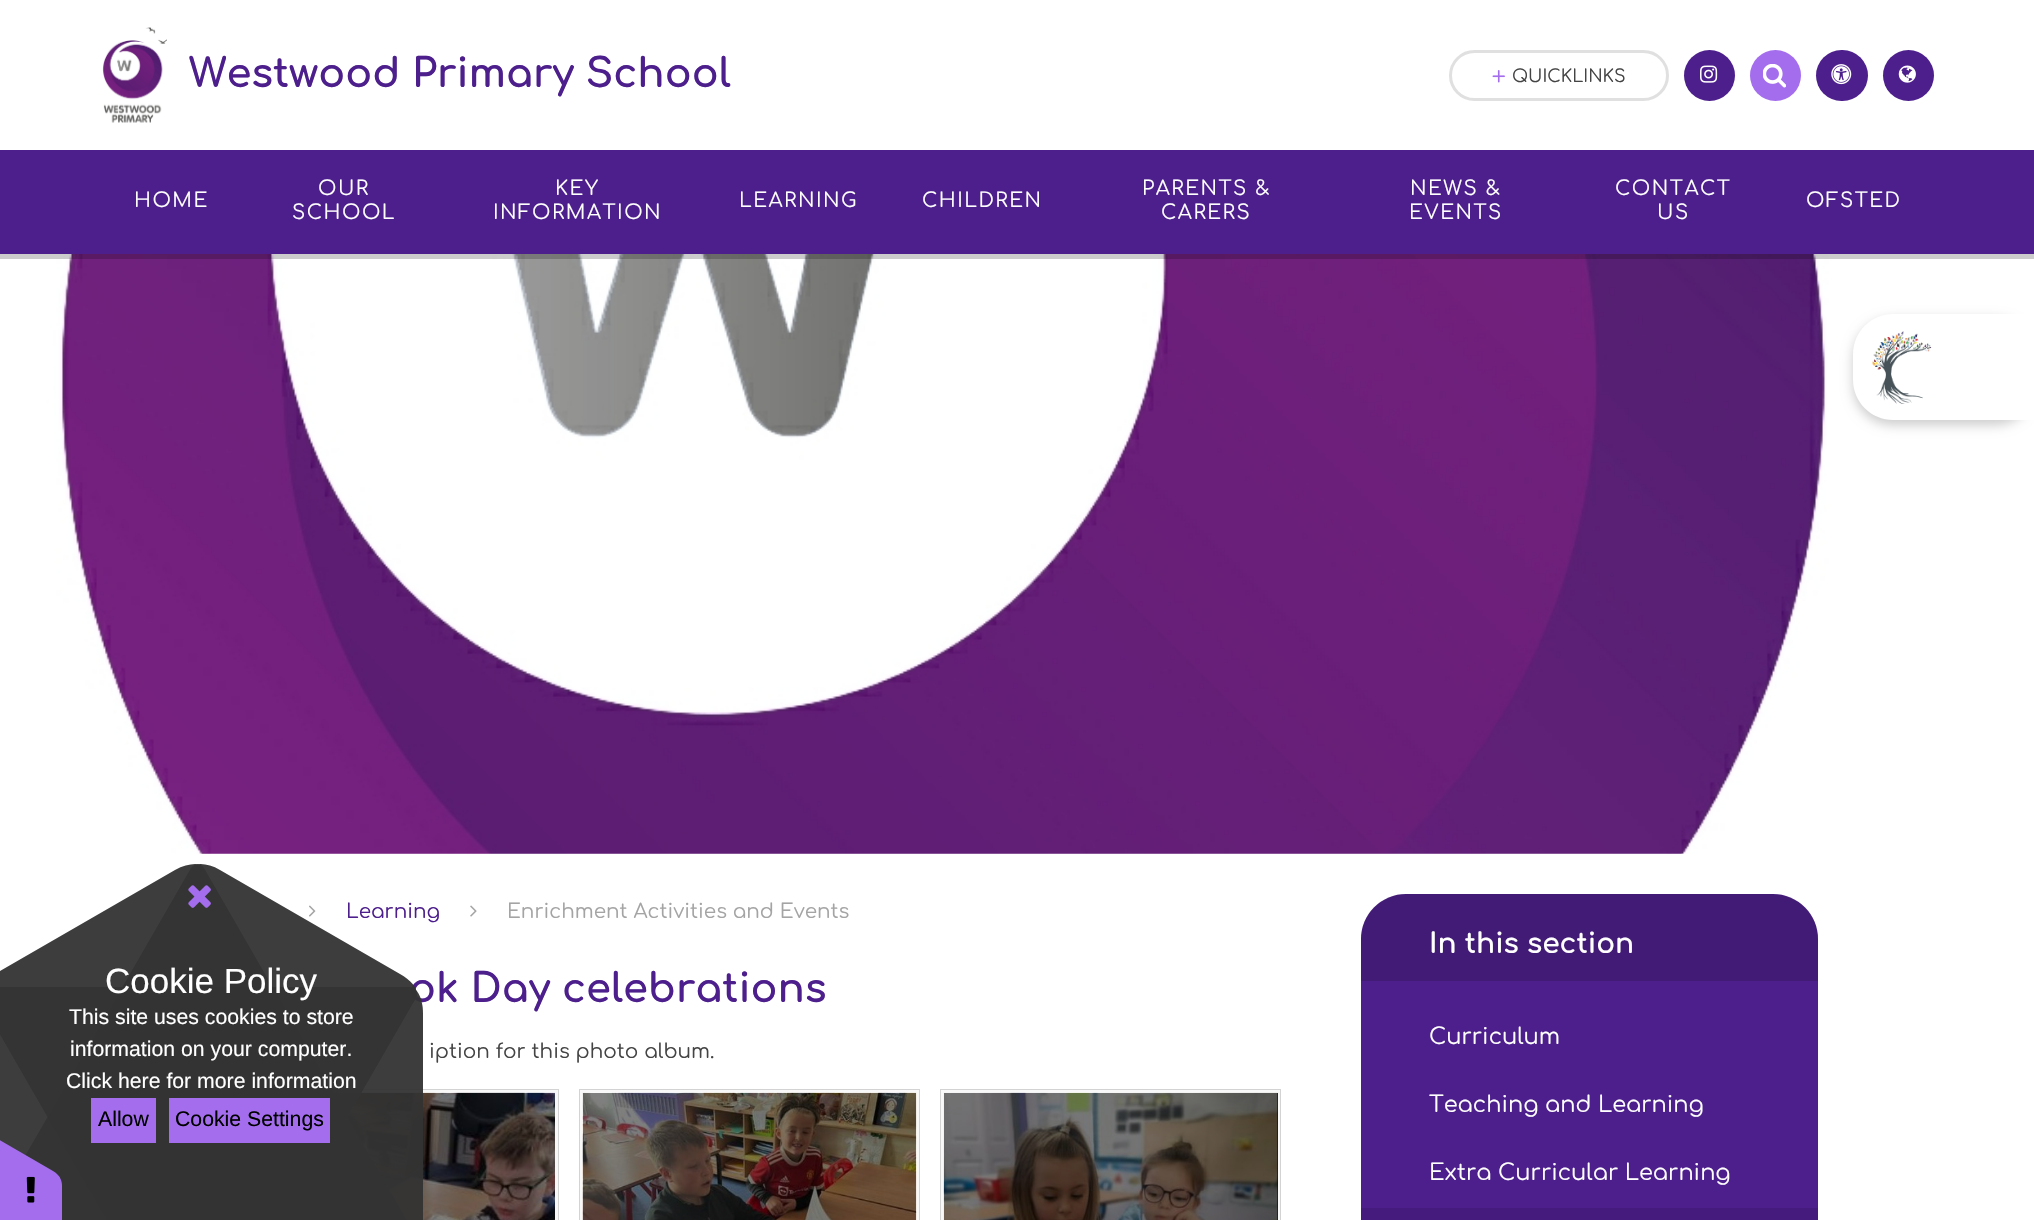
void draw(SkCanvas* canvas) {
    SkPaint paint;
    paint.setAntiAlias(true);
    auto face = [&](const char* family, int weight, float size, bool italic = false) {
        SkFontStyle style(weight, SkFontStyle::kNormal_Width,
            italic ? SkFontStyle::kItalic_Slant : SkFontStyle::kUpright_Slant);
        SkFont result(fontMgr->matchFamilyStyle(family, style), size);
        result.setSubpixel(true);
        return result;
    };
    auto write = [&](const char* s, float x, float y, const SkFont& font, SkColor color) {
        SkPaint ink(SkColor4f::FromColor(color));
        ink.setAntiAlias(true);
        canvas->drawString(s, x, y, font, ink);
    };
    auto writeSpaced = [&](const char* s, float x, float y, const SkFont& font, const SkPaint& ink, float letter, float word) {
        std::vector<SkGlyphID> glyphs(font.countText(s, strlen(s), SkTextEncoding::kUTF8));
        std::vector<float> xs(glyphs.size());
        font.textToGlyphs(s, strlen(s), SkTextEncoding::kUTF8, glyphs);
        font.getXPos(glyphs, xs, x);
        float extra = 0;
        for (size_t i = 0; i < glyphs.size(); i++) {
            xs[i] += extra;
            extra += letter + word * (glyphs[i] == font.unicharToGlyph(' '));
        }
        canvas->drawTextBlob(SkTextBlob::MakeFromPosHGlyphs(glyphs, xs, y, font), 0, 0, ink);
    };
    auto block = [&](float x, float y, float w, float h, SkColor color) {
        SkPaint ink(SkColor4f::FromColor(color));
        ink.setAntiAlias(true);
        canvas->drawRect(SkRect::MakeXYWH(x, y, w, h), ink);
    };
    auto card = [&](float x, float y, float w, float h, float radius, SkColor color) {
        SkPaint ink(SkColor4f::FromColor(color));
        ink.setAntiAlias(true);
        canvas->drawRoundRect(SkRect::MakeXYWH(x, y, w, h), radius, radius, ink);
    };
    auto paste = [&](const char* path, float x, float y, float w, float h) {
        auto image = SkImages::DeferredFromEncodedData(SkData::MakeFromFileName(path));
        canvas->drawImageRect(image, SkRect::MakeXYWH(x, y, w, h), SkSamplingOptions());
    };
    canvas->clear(SK_ColorWHITE);
    paste("pic1.png", 102, 27, 65, 96);
    auto kFont1 = face("Comfortaa", 700, 40);
    write("Westwood Primary School", 189, 87, kFont1, SkColorSetRGB(77, 31, 140));
    paste("pic8.png", 0, 254, 2034, 600);
    block(0, 254, 2034, 5, SkColorSetARGB(51, 0, 0, 0));
    paint.setColor(SkColorSetARGB(51, 0, 0, 0));
    paint.setMaskFilter(SkMaskFilter::MakeBlur(kNormal_SkBlurStyle, 6));
    canvas->drawRoundRect(SkRect::MakeXYWH(1853, 319, 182, 106), 40, 40, paint);
    paint.setMaskFilter(nullptr);
    paint.setColor(SK_ColorWHITE);
    canvas->drawPath(SkPathBuilder().moveTo(1893, 314).lineTo(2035, 314).lineTo(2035, 420).lineTo(1893, 420).cubicTo(1871, 420, 1853, 402, 1853, 380).lineTo(1853, 354).cubicTo(1853, 332, 1871, 314, 1893, 314).close().detach(), paint);
    paste("pic2.png", 1872, 331, 60, 73);
    block(0, 150, 2034, 104, SkColorSetRGB(77, 31, 140));
    paint.setStyle(SkPaint::kStroke_Style);
    paint.setStrokeWidth(3);
    paint.setColor(SkColorSetRGB(224, 224, 224));
    canvas->drawRoundRect(SkRect::MakeXYWH(1450.5f, 51.5f, 217, 48), 24, 24, paint);
    paste("pic3.png", 1492, 70, 13, 13);
    auto kFont2 = face("Comfortaa", 400, 17.5f);
    write("QUICKLINKS", 1512, 82, kFont2, SkColorSetRGB(68, 68, 68));
    paint.setStyle(SkPaint::kFill_Style);
    paint.setColor(SkColorSetRGB(77, 31, 140));
    canvas->drawCircle(1709.5f, 75.5f, 25.5f, paint);
    paste("pic4.png", 1700, 65, 18, 18);
    paint.setColor(SkColorSetRGB(163, 109, 237));
    canvas->drawCircle(1775.5f, 75.5f, 25.5f, paint);
    paste("pic5.png", 1763, 64, 23, 24);
    card(1816, 50, 52, 51, 25.5f, SkColorSetRGB(77, 31, 140));
    paste("pic6.png", 1831, 64, 21, 21);
    paint.setColor(SkColorSetRGB(77, 31, 140));
    canvas->drawCircle(1908.5f, 75.5f, 25.5f, paint);
    paste("pic7.png", 1898, 65, 18, 18);
    auto kFont3 = face("Comfortaa", 400, 20);
    paint.setColor(SK_ColorWHITE);
    writeSpaced("HOME", 134, 207, kFont3, paint, 1.5f, 0);
    writeSpaced("OUR", 318, 195, kFont3, paint, 1.5f, 0);
    writeSpaced("SCHOOL", 292, 219, kFont3, paint, 1.5f, 0);
    writeSpaced("KEY", 555, 195, kFont3, paint, 1.5f, 0);
    writeSpaced("INFORMATION", 493, 219, kFont3, paint, 1.5f, 0);
    writeSpaced("LEARNING", 739, 207, kFont3, paint, 1.5f, 0);
    writeSpaced("CHILDREN", 922, 207, kFont3, paint, 1.5f, 0);
    writeSpaced("PARENTS &", 1142, 195, kFont3, paint, 1.5f, 0);
    writeSpaced("CARERS", 1161, 219, kFont3, paint, 1.5f, 0);
    writeSpaced("NEWS &", 1410, 195, kFont3, paint, 1.5f, 0);
    writeSpaced("EVENTS", 1409, 219, kFont3, paint, 1.5f, 0);
    writeSpaced("CONTACT", 1615, 195, kFont3, paint, 1.5f, 0);
    writeSpaced("US", 1657, 219, kFont3, paint, 1.5f, 0);
    writeSpaced("OFSTED", 1806, 207, kFont3, paint, 1.5f, 0);
    paste("pic9.png", 309, 905, 7, 12);
    write("Learning", 346, 918, kFont3, SkColorSetRGB(77, 31, 140));
    paste("pic10.png", 470, 905, 7, 12);
    write("Enrichment Activities and Events", 507, 918, kFont3, SkColorSetRGB(164, 164, 164));
    write("ok Day celebrations", 409, 1002, kFont1, SkColorSetRGB(77, 31, 140));
    write("iption for this photo album.", 429, 1058, kFont3, SkColorSetRGB(68, 68, 68));
    block(218, 1089, 341, 131, SkColorSetRGB(248, 248, 248));
    paint.setColor(SkColorSetRGB(211, 211, 211));
    canvas->drawPath(SkPathBuilder().moveTo(218, 1089).lineTo(559, 1089).lineTo(558, 1090).lineTo(219, 1090).close().detach(), paint);
    paint.setColor(SkColorSetARGB(38, 0, 0, 0));
    canvas->drawPath(SkPathBuilder().moveTo(559, 1089).lineTo(559, 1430).lineTo(558, 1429).lineTo(558, 1090).close().detach(), paint);
    canvas->drawPath(SkPathBuilder().moveTo(218, 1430).lineTo(218, 1089).lineTo(219, 1090).lineTo(219, 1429).close().detach(), paint);
    block(221, 1093, 334, 127, SK_ColorBLACK);
    paste("pic11.png", 221, 1092, 334, 128);
    block(579, 1089, 341, 131, SkColorSetRGB(248, 248, 248));
    paint.setColor(SkColorSetRGB(211, 211, 211));
    canvas->drawPath(SkPathBuilder().moveTo(579, 1089).lineTo(920, 1089).lineTo(919, 1090).lineTo(580, 1090).close().detach(), paint);
    paint.setColor(SkColorSetARGB(38, 0, 0, 0));
    canvas->drawPath(SkPathBuilder().moveTo(920, 1089).lineTo(920, 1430).lineTo(919, 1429).lineTo(919, 1090).close().detach(), paint);
    canvas->drawPath(SkPathBuilder().moveTo(579, 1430).lineTo(579, 1089).lineTo(580, 1090).lineTo(580, 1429).close().detach(), paint);
    block(583, 1093, 333, 127, SK_ColorBLACK);
    paste("pic12.png", 582, 1092, 335, 128);
    block(940, 1089, 341, 131, SkColorSetRGB(248, 248, 248));
    paint.setColor(SkColorSetRGB(211, 211, 211));
    canvas->drawPath(SkPathBuilder().moveTo(940, 1089).lineTo(1281, 1089).lineTo(1280, 1090).lineTo(941, 1090).close().detach(), paint);
    paint.setColor(SkColorSetARGB(38, 0, 0, 0));
    canvas->drawPath(SkPathBuilder().moveTo(1281, 1089).lineTo(1281, 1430).lineTo(1280, 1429).lineTo(1280, 1090).close().detach(), paint);
    canvas->drawPath(SkPathBuilder().moveTo(940, 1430).lineTo(940, 1089).lineTo(941, 1090).lineTo(941, 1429).close().detach(), paint);
    block(944, 1093, 334, 127, SK_ColorBLACK);
    paste("pic13.png", 943, 1092, 335, 128);
    card(1361, 894, 457, 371, 45, SkColorSetRGB(77, 31, 140));
    canvas->drawPath(SkPathBuilder().moveTo(1406, 894).lineTo(1773, 894).cubicTo(1798, 894, 1818, 914, 1818, 939).lineTo(1818, 981).lineTo(1361, 981).lineTo(1361, 939).cubicTo(1361, 914, 1381, 894, 1406, 894).close().detach(), paint);
    auto kFont4 = face("Comfortaa", 700, 28);
    write("In this section", 1429, 953, kFont4, SK_ColorWHITE);
    auto kFont5 = face("Comfortaa", 400, 22.5f);
    write("Curriculum", 1429, 1044, kFont5, SK_ColorWHITE);
    write("Teaching and Learning", 1429, 1112, kFont5, SK_ColorWHITE);
    write("Extra Curricular Learning", 1429, 1180, kFont5, SK_ColorWHITE);
    block(1361, 1208, 457, 12, SkColorSetRGB(69, 28, 126));
    paint.setColor(SkColorSetARGB(242, 51, 51, 51));
    canvas->drawPath(SkPathBuilder().moveTo(423, 1013).lineTo(423, 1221).cubicTo(423, 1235, 417, 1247, 410, 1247).lineTo(-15, 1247).cubicTo(-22, 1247, -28, 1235, -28, 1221).lineTo(-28, 1013).cubicTo(-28, 999, -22, 987, -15, 987).lineTo(410, 987).cubicTo(417, 987, 423, 999, 423, 1013).close().detach(), paint);
    canvas->drawPath(SkPathBuilder().moveTo(400, 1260).lineTo(220, 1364).cubicTo(208, 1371, 195, 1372, 191, 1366).lineTo(-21, 998).cubicTo(-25, 992, -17, 981, -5, 974).lineTo(175, 870).cubicTo(188, 863, 201, 862, 204, 868).lineTo(416, 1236).cubicTo(420, 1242, 413, 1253, 400, 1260).close().detach(), paint);
    canvas->drawPath(SkPathBuilder().moveTo(220, 870).lineTo(400, 974).cubicTo(413, 981, 420, 992, 416, 998).lineTo(204, 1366).cubicTo(201, 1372, 188, 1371, 175, 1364).lineTo(-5, 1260).cubicTo(-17, 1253, -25, 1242, -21, 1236).lineTo(191, 868).cubicTo(195, 862, 208, 863, 220, 870).close().detach(), paint);
    paste("pic14.png", 188, 885, 23, 23);
    auto kFont6 = face("Liberation Sans", 400, 35);
    write("Cookie Policy", 105, 993, kFont6, SK_ColorWHITE);
    auto kFont7 = face("Liberation Sans", 400, 21.25f);
    write("This site uses cookies to store", 69, 1024, kFont7, SK_ColorWHITE);
    write("information on your computer.", 70, 1056, kFont7, SK_ColorWHITE);
    write("Click here for more information", 66, 1088, kFont7, SK_ColorWHITE);
    block(91, 1098, 65, 45, SkColorSetRGB(163, 109, 237));
    write("Allow", 98, 1126, kFont7, SK_ColorBLACK);
    block(169, 1098, 161, 45, SkColorSetRGB(163, 109, 237));
    write("Cookie Settings", 175, 1126, kFont7, SK_ColorBLACK);
    paint.setColor(SkColorSetRGB(163, 109, 237));
    canvas->drawPath(SkPathBuilder().moveTo(62, 1186).lineTo(62, 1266).cubicTo(62, 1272, 60, 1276, 57, 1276).lineTo(-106, 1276).cubicTo(-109, 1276, -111, 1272, -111, 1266).lineTo(-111, 1186).cubicTo(-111, 1181, -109, 1176, -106, 1176).lineTo(57, 1176).cubicTo(60, 1176, 62, 1181, 62, 1186).close().detach(), paint);
    canvas->drawPath(SkPathBuilder().moveTo(-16, 1131).lineTo(53, 1171).cubicTo(58, 1174, 61, 1178, 60, 1180).lineTo(-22, 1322).cubicTo(-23, 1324, -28, 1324, -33, 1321).lineTo(-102, 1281).cubicTo(-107, 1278, -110, 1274, -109, 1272).lineTo(-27, 1130).cubicTo(-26, 1128, -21, 1128, -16, 1131).close().detach(), paint);
    paste("pic15.png", 26, 1176, 9, 27);
}
